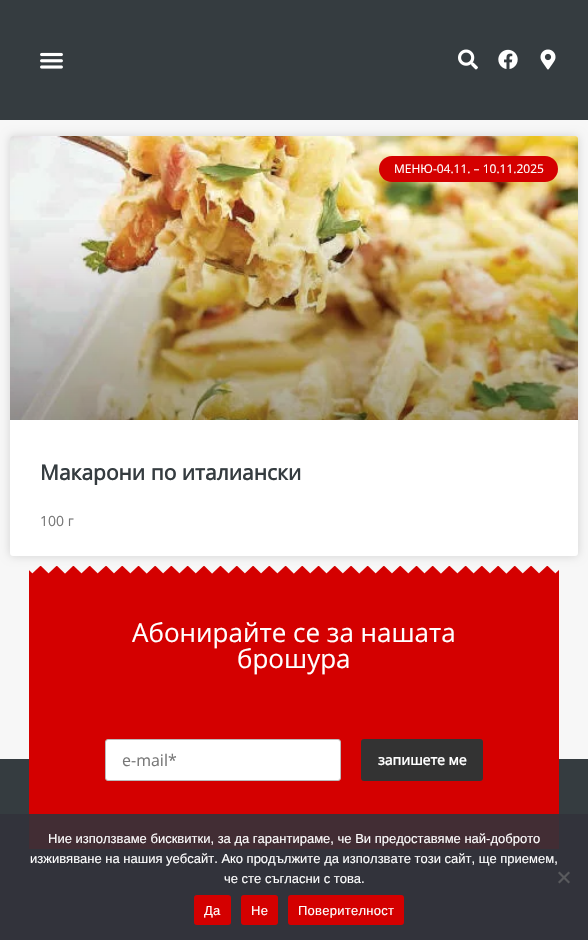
void draw(SkCanvas* canvas) {
    SkPaint paint;
    paint.setAntiAlias(true);
    auto face = [&](const char* family, int weight, float size, bool italic = false) {
        SkFontStyle style(weight, SkFontStyle::kNormal_Width,
            italic ? SkFontStyle::kItalic_Slant : SkFontStyle::kUpright_Slant);
        SkFont result(fontMgr->matchFamilyStyle(family, style), size);
        result.setSubpixel(true);
        return result;
    };
    auto write = [&](const char* s, float x, float y, const SkFont& font, SkColor color) {
        SkPaint ink(SkColor4f::FromColor(color));
        ink.setAntiAlias(true);
        canvas->drawString(s, x, y, font, ink);
    };
    auto writeSpaced = [&](const char* s, float x, float y, const SkFont& font, const SkPaint& ink, float letter, float word) {
        std::vector<SkGlyphID> glyphs(font.countText(s, strlen(s), SkTextEncoding::kUTF8));
        std::vector<float> xs(glyphs.size());
        font.textToGlyphs(s, strlen(s), SkTextEncoding::kUTF8, glyphs);
        font.getXPos(glyphs, xs, x);
        float extra = 0;
        for (size_t i = 0; i < glyphs.size(); i++) {
            xs[i] += extra;
            extra += letter + word * (glyphs[i] == font.unicharToGlyph(' '));
        }
        canvas->drawTextBlob(SkTextBlob::MakeFromPosHGlyphs(glyphs, xs, y, font), 0, 0, ink);
    };
    auto block = [&](float x, float y, float w, float h, SkColor color) {
        SkPaint ink(SkColor4f::FromColor(color));
        ink.setAntiAlias(true);
        canvas->drawRect(SkRect::MakeXYWH(x, y, w, h), ink);
    };
    auto card = [&](float x, float y, float w, float h, float radius, SkColor color) {
        SkPaint ink(SkColor4f::FromColor(color));
        ink.setAntiAlias(true);
        canvas->drawRoundRect(SkRect::MakeXYWH(x, y, w, h), radius, radius, ink);
    };
    auto paste = [&](const char* path, float x, float y, float w, float h) {
        auto image = SkImages::DeferredFromEncodedData(SkData::MakeFromFileName(path));
        canvas->drawImageRect(image, SkRect::MakeXYWH(x, y, w, h), SkSamplingOptions());
    };
    canvas->clear(SkColorSetRGB(247, 247, 247));
    block(0, 0, 588, 120, SkColorSetRGB(53, 60, 64));
    paste("pic1.png", 40, 52, 23, 17);
    paste("pic2.png", 458, 49, 20, 21);
    paste("pic3.png", 498, 49, 20, 20);
    paste("pic4.png", 540, 49, 16, 21);
    paint.setColor(SkColorSetARGB(38, 0, 0, 0));
    paint.setMaskFilter(SkMaskFilter::MakeBlur(kNormal_SkBlurStyle, 5));
    canvas->drawRoundRect(SkRect::MakeXYWH(10, 136, 568, 420), 3, 3, paint);
    paint.setMaskFilter(nullptr);
    card(10, 136, 568, 420, 3, SK_ColorWHITE);
    paste("pic5.png", 10, 136, 568, 284);
    {
        const SkColor colors[] = {SkColorSetARGB(89, 0, 0, 0), SkColorSetARGB(0, 0, 0, 0)};
        const float stops[] = {0, 0.75f};
        const SkPoint ends[] = {{294, 420}, {294, 136}};
        paint.setShader(SkGradientShader::MakeLinear(ends, colors, stops, 2, SkTileMode::kClamp));
        paint.setAlpha(255);
    }
    canvas->drawRect(SkRect::MakeXYWH(10, 220, 568, 200), paint);
    card(379, 156, 179, 26, 13, SkColorSetRGB(212, 0, 0));
    auto kFont1 = face("Open Sans", 400, 12);
    write("МЕНЮ-04.11. – 10.11.2025", 394, 173, kFont1, SK_ColorWHITE);
    auto kFont2 = face("Open Sans", 700, 21);
    write("Макарони по италиански", 40, 480, kFont2, SkColorSetRGB(53, 60, 64));
    auto kFont3 = face("Open Sans", 400, 14);
    write("100 г", 40, 526, kFont3, SkColorSetRGB(119, 119, 119));
    block(0, 759, 588, 55, SkColorSetRGB(53, 60, 64));
    block(29, 566, 530, 248, SkColorSetRGB(212, 0, 0));
    block(0, 814, 588, 126, SkColorSetRGB(50, 51, 59));
    block(29, 814, 530, 35, SkColorSetRGB(66, 45, 52));
    paste("pic6.png", 29, 566, 530, 8);
    auto kFont4 = face("Open Sans", 400, 26);
    write("Абонирайте се за нашата", 132, 642, kFont4, SK_ColorWHITE);
    write("брошура", 237, 668, kFont4, SK_ColorWHITE);
    paint.setShader(nullptr);
    paint.setColor(SK_ColorWHITE);
    canvas->drawRoundRect(SkRect::MakeXYWH(105.5f, 739.5f, 235, 41), 2.5f, 2.5f, paint);
    paint.setStyle(SkPaint::kStroke_Style);
    paint.setStrokeWidth(1);
    paint.setColor(SkColorSetRGB(187, 187, 187));
    canvas->drawRoundRect(SkRect::MakeXYWH(105.5f, 739.5f, 235, 41), 2.5f, 2.5f, paint);
    auto kFont5 = face("Open Sans", 400, 16);
    write("e-mail*", 122, 766, kFont5, SkColorSetRGB(119, 119, 119));
    card(361, 739, 122, 42, 3, SkColorSetRGB(51, 51, 51));
    auto kFont6 = face("Open Sans", 700, 14);
    write("запишете ме", 378, 765, kFont6, SK_ColorWHITE);
    auto kFont7 = face("Liberation Sans", 400, 13);
    write("Ние използваме бисквитки, за да гарантираме, че Ви предоставяме най-доброто", 48, 843, kFont7, SK_ColorWHITE);
    write("изживяване на нашия уебсайт. Ако продължите да използвате този сайт, ще приемем,", 30, 863, kFont7, SK_ColorWHITE);
    write("че сте съгласни с това.", 224, 883, kFont7, SK_ColorWHITE);
    paint.setStyle(SkPaint::kFill_Style);
    paint.setColor(SkColorSetRGB(89, 90, 93));
    canvas->drawPath(SkPathBuilder().moveTo(568.5f, 871.5f).lineTo(570, 873).lineTo(559.5f, 883.5f).lineTo(558, 882).close().detach(), paint);
    canvas->drawPath(SkPathBuilder().moveTo(558, 873).lineTo(559.5f, 871.5f).lineTo(570, 882).lineTo(568.5f, 883.5f).close().detach(), paint);
    card(194, 895, 37, 30, 3, SkColorSetRGB(212, 0, 0));
    paint.setColor(SK_ColorWHITE);
    writeSpaced("Да", 204, 915, kFont7, paint, 0.25f, 0);
    card(241, 895, 37, 30, 3, SkColorSetRGB(212, 0, 0));
    writeSpaced("Не", 251, 915, kFont7, paint, 0.25f, 0);
    card(288, 895, 116, 30, 3, SkColorSetRGB(212, 0, 0));
    writeSpaced("Поверителност", 298, 915, kFont7, paint, 0.25f, 0);
}
